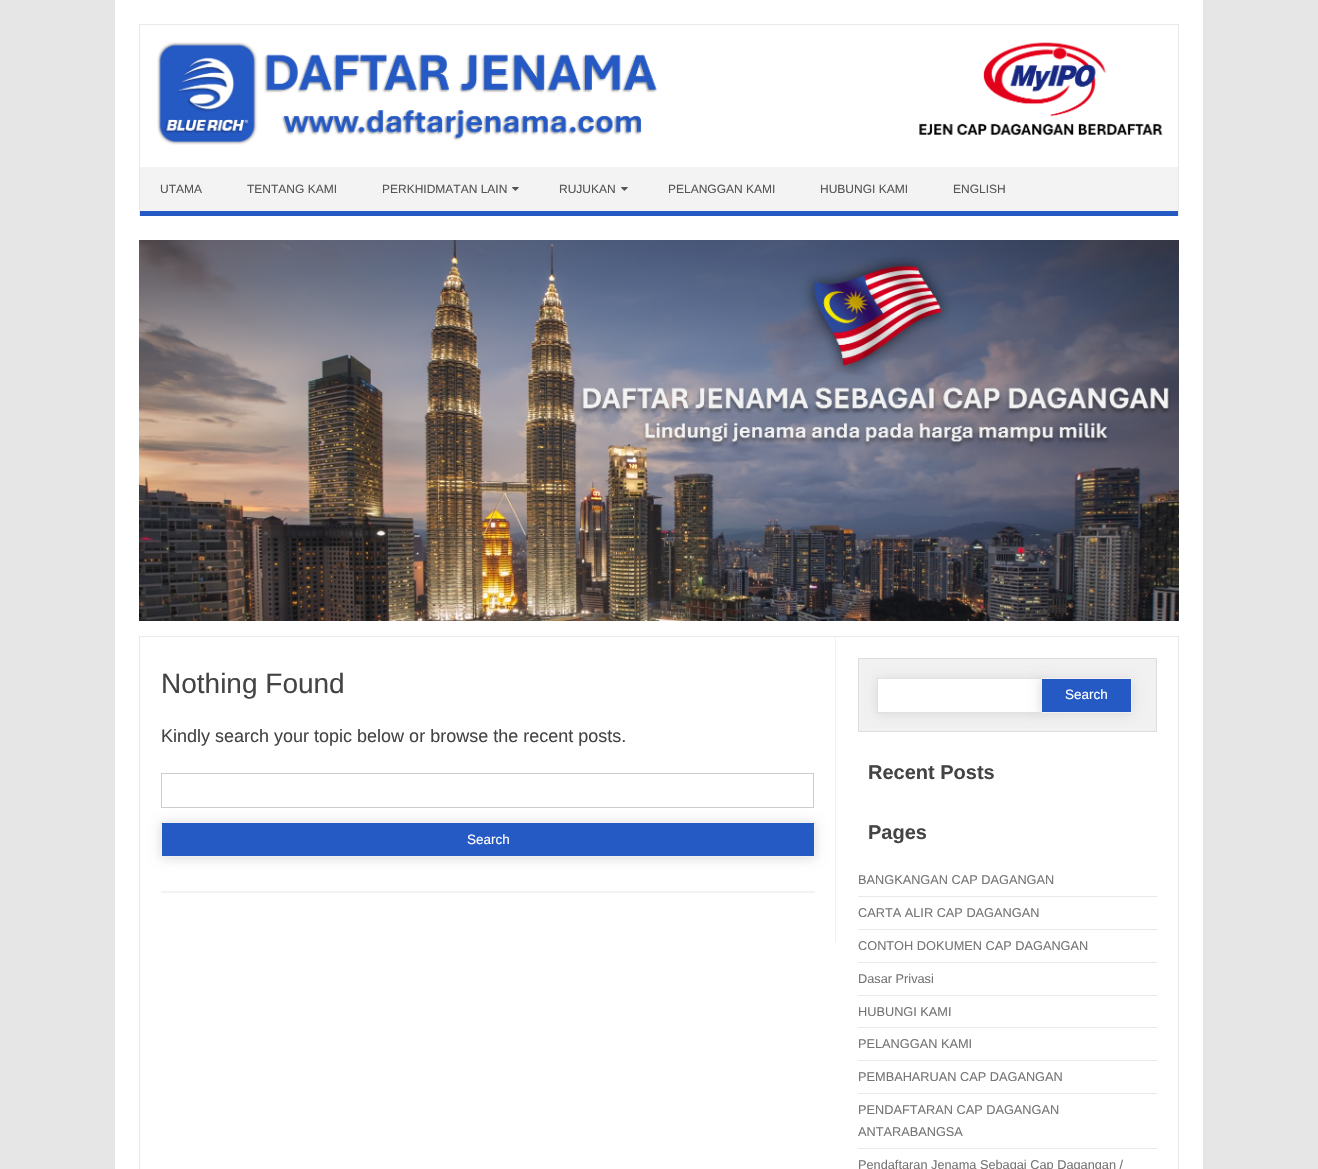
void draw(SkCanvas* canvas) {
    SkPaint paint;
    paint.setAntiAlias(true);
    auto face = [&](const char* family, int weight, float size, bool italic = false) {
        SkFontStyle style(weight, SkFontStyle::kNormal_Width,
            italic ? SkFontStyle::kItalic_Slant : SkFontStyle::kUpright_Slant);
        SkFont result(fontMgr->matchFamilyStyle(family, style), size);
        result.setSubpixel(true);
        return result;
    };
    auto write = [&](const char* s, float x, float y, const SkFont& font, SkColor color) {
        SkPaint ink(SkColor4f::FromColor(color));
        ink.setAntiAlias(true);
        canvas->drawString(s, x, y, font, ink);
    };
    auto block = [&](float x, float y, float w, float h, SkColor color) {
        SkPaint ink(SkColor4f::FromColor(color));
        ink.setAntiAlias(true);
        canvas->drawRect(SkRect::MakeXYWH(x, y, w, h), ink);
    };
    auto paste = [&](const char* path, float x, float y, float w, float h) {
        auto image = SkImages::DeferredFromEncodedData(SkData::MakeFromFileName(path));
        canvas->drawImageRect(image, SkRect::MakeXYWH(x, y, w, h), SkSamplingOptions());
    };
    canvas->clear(SkColorSetRGB(230, 230, 230));
    block(115, 0, 1088, 1169, SK_ColorWHITE);
    block(139, 24, 1040, 1, SkColorSetRGB(233, 233, 233));
    block(1178, 24, 1, 192, SkColorSetRGB(233, 233, 233));
    block(139, 24, 1, 192, SkColorSetRGB(233, 233, 233));
    paste("pic1.png", 157, 42, 1006, 103);
    block(140, 167, 1038, 44, SkColorSetRGB(243, 243, 243));
    block(140, 211, 1038, 5, SkColorSetRGB(37, 89, 196));
    auto kFont1 = face("Liberation Sans", 400, 12);
    write("UTAMA", 160, 193, kFont1, SkColorSetRGB(85, 85, 85));
    write("TENTANG KAMI", 247, 193, kFont1, SkColorSetRGB(85, 85, 85));
    write("PERKHIDMATAN LAIN", 382, 193, kFont1, SkColorSetRGB(85, 85, 85));
    paste("pic2.png", 512, 187, 7, 4);
    write("RUJUKAN", 559, 193, kFont1, SkColorSetRGB(85, 85, 85));
    paste("pic2.png", 621, 187, 7, 4);
    write("PELANGGAN KAMI", 668, 193, kFont1, SkColorSetRGB(85, 85, 85));
    write("HUBUNGI KAMI", 820, 193, kFont1, SkColorSetRGB(85, 85, 85));
    write("ENGLISH", 953, 193, kFont1, SkColorSetRGB(85, 85, 85));
    paste("pic3.png", 139, 240, 1040, 381);
    paint.setStyle(SkPaint::kStroke_Style);
    paint.setStrokeWidth(1);
    paint.setColor(SkColorSetRGB(233, 233, 233));
    canvas->drawRect(SkRect::MakeXYWH(139.5f, 636.5f, 1039, 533), paint);
    block(835, 637, 1, 305, SkColorSetRGB(241, 241, 241));
    block(161, 891, 654, 2, SkColorSetRGB(243, 243, 243));
    auto kFont2 = face("Liberation Sans", 400, 28);
    write("Nothing Found", 161, 693, kFont2, SkColorSetRGB(68, 68, 68));
    auto kFont3 = face("Liberation Sans", 400, 18);
    write("Kindly search your topic below or browse the recent posts.", 161, 742, kFont3, SkColorSetRGB(68, 68, 68));
    paint.setColor(SkColorSetRGB(204, 204, 204));
    canvas->drawRect(SkRect::MakeXYWH(161.5f, 773.5f, 652, 34), paint);
    paint.setStyle(SkPaint::kFill_Style);
    paint.setColor(SkColorSetRGB(217, 217, 217));
    paint.setMaskFilter(SkMaskFilter::MakeBlur(kNormal_SkBlurStyle, 6));
    canvas->drawRect(SkRect::MakeXYWH(161, 823, 654, 35), paint);
    paint.setMaskFilter(nullptr);
    paint.setColor(SkColorSetRGB(37, 89, 196));
    canvas->drawRect(SkRect::MakeXYWH(161.5f, 822.5f, 653, 34), paint);
    paint.setStyle(SkPaint::kStroke_Style);
    paint.setColor(SkColorSetRGB(241, 241, 241));
    canvas->drawRect(SkRect::MakeXYWH(161.5f, 822.5f, 653, 34), paint);
    auto kFont4 = face("Liberation Sans", 400, 13.5f);
    write("Search", 467, 844, kFont4, SK_ColorWHITE);
    paint.setStyle(SkPaint::kFill_Style);
    canvas->drawRect(SkRect::MakeXYWH(858.5f, 658.5f, 298, 73), paint);
    paint.setStyle(SkPaint::kStroke_Style);
    paint.setColor(SkColorSetRGB(221, 221, 221));
    canvas->drawRect(SkRect::MakeXYWH(858.5f, 658.5f, 298, 73), paint);
    paint.setStyle(SkPaint::kFill_Style);
    paint.setColor(SkColorSetRGB(217, 217, 217));
    paint.setMaskFilter(SkMaskFilter::MakeBlur(kNormal_SkBlurStyle, 6));
    canvas->drawRect(SkRect::MakeXYWH(877, 679, 168, 35), paint);
    paint.setMaskFilter(nullptr);
    block(878, 679, 163, 33, SK_ColorWHITE);
    paint.setStyle(SkPaint::kStroke_Style);
    paint.setColor(SkColorSetRGB(225, 225, 225));
    canvas->drawRect(SkRect::MakeXYWH(877.5f, 678.5f, 167, 34), paint);
    paint.setStyle(SkPaint::kFill_Style);
    paint.setColor(SkColorSetRGB(217, 217, 217));
    paint.setMaskFilter(SkMaskFilter::MakeBlur(kNormal_SkBlurStyle, 6));
    canvas->drawRect(SkRect::MakeXYWH(1041, 679, 91, 35), paint);
    paint.setMaskFilter(nullptr);
    paint.setColor(SkColorSetRGB(37, 89, 196));
    canvas->drawRect(SkRect::MakeXYWH(1041.5f, 678.5f, 90, 34), paint);
    paint.setStyle(SkPaint::kStroke_Style);
    paint.setColor(SkColorSetRGB(241, 241, 241));
    canvas->drawRect(SkRect::MakeXYWH(1041.5f, 678.5f, 90, 34), paint);
    write("Search", 1065, 699, kFont4, SK_ColorWHITE);
    auto kFont5 = face("Liberation Sans", 700, 20);
    write("Recent Posts", 868, 779, kFont5, SkColorSetRGB(68, 68, 68));
    write("Pages", 868, 839, kFont5, SkColorSetRGB(68, 68, 68));
    block(858, 896, 299, 1, SkColorSetRGB(233, 233, 233));
    auto kFont6 = face("Liberation Sans", 400, 12.75f);
    write("BANGKANGAN CAP DAGANGAN", 858, 884, kFont6, SkColorSetRGB(117, 117, 117));
    block(858, 929, 299, 1, SkColorSetRGB(233, 233, 233));
    write("CARTA ALIR CAP DAGANGAN", 858, 917, kFont6, SkColorSetRGB(117, 117, 117));
    block(858, 962, 299, 1, SkColorSetRGB(233, 233, 233));
    write("CONTOH DOKUMEN CAP DAGANGAN", 858, 950, kFont6, SkColorSetRGB(117, 117, 117));
    block(858, 995, 299, 1, SkColorSetRGB(233, 233, 233));
    write("Dasar Privasi", 858, 983, kFont6, SkColorSetRGB(117, 117, 117));
    block(858, 1027, 299, 1, SkColorSetRGB(233, 233, 233));
    write("HUBUNGI KAMI", 858, 1016, kFont6, SkColorSetRGB(117, 117, 117));
    block(858, 1060, 299, 1, SkColorSetRGB(233, 233, 233));
    write("PELANGGAN KAMI", 858, 1048, kFont6, SkColorSetRGB(117, 117, 117));
    block(858, 1093, 299, 1, SkColorSetRGB(233, 233, 233));
    write("PEMBAHARUAN CAP DAGANGAN", 858, 1081, kFont6, SkColorSetRGB(117, 117, 117));
    block(858, 1148, 299, 1, SkColorSetRGB(233, 233, 233));
    write("PENDAFTARAN CAP DAGANGAN", 858, 1114, kFont6, SkColorSetRGB(117, 117, 117));
    write("ANTARABANGSA", 858, 1136, kFont6, SkColorSetRGB(117, 117, 117));
    write("Pendaftaran Jenama Sebagai Cap Dagangan /", 858, 1169, kFont6, SkColorSetRGB(117, 117, 117));
}
